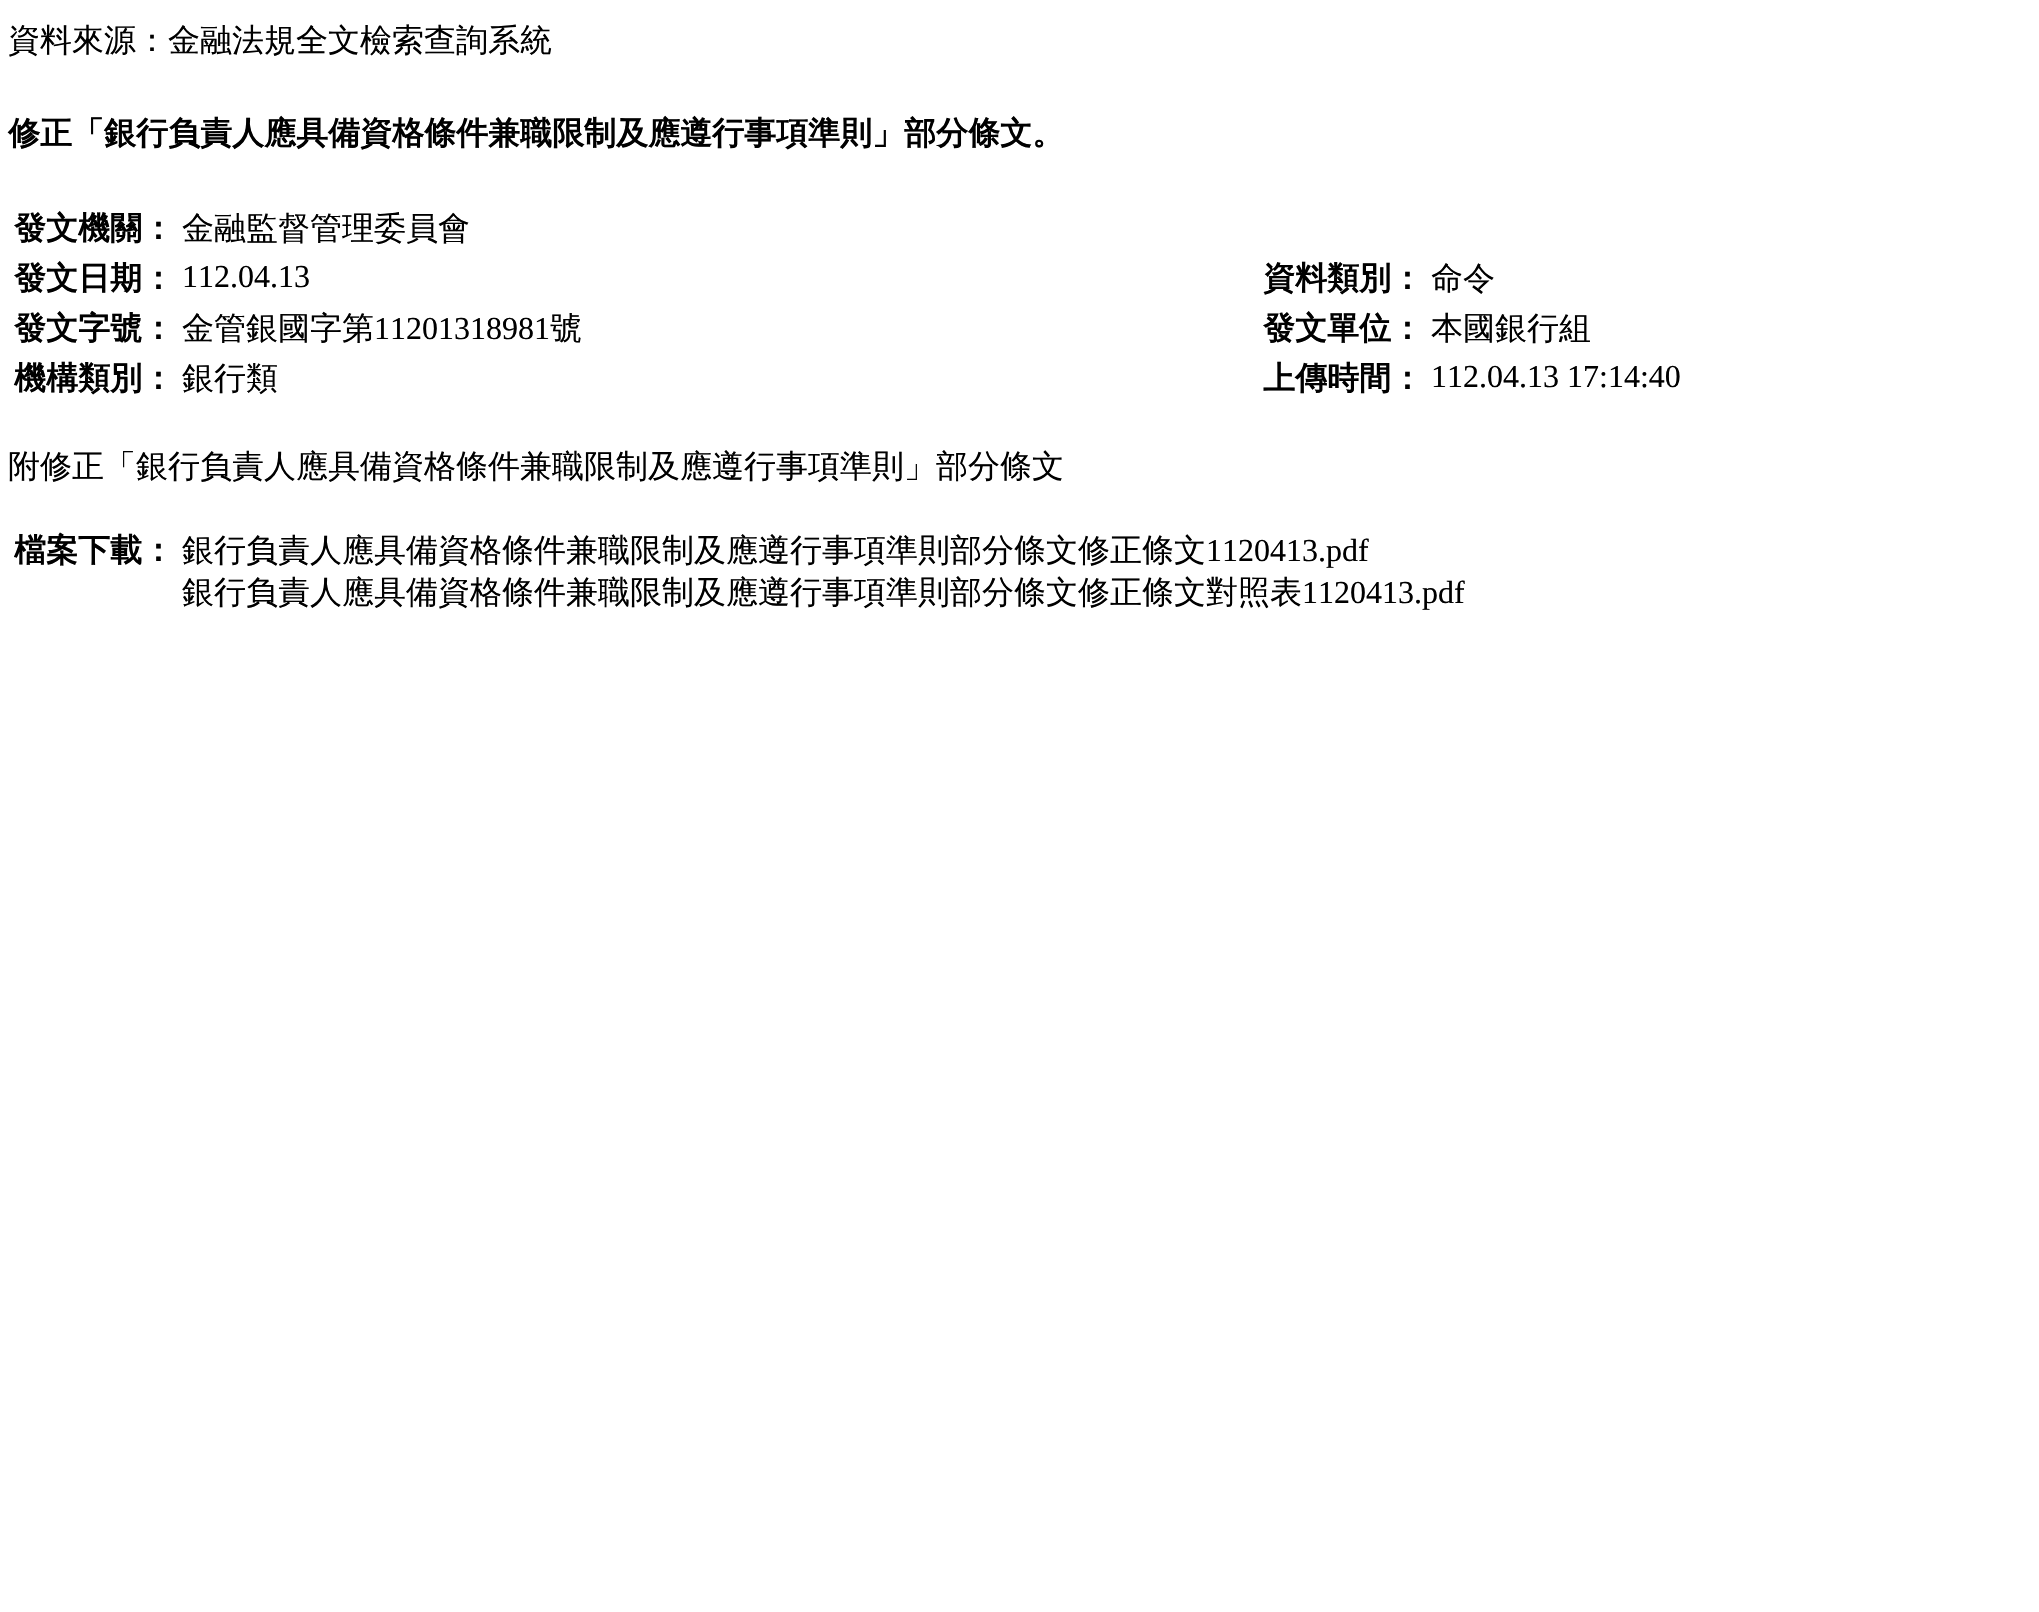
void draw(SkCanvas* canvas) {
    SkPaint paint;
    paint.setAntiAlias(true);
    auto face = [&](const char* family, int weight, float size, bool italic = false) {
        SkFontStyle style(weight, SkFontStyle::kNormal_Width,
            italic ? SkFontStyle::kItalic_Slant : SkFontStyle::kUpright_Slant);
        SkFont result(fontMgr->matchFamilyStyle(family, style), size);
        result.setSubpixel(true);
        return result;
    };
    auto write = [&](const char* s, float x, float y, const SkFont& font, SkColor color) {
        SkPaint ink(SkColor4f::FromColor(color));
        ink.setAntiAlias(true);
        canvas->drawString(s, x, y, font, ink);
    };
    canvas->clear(SK_ColorWHITE);
    auto kFont1 = face("WenQuanYi Zen Hei", 500, 32);
    write("資料來源：金融法規全文檢索查詢系統", 8, 51, kFont1, SK_ColorBLACK);
    auto kFont2 = face("WenQuanYi Zen Hei", 700, 32);
    write("修正「銀行負責人應具備資格條件兼職限制及應遵行事項準則」部分條文。", 8, 144, kFont2, SK_ColorBLACK);
    write("發文機關：", 14, 239, kFont2, SK_ColorBLACK);
    write("金融監督管理委員會", 182, 239, kFont1, SK_ColorBLACK);
    write("發文日期：", 14, 289, kFont2, SK_ColorBLACK);
    auto kFont3 = face("Liberation Serif", 400, 32);
    write("112.04.13", 182, 287, kFont3, SK_ColorBLACK);
    write("資料類別：", 1263, 289, kFont2, SK_ColorBLACK);
    write("命令", 1431, 289, kFont1, SK_ColorBLACK);
    write("發文字號：", 14, 339, kFont2, SK_ColorBLACK);
    write("金管銀國字第", 182, 339, kFont1, SK_ColorBLACK);
    write("11201318981", 374, 339, kFont3, SK_ColorBLACK);
    write("號", 550, 339, kFont1, SK_ColorBLACK);
    write("發文單位：", 1263, 339, kFont2, SK_ColorBLACK);
    write("本國銀行組", 1431, 339, kFont1, SK_ColorBLACK);
    write("機構類別：", 14, 389, kFont2, SK_ColorBLACK);
    write("銀行類", 182, 389, kFont1, SK_ColorBLACK);
    write("上傳時間：", 1263, 389, kFont2, SK_ColorBLACK);
    write("112.04.13 17:14:40", 1431, 387, kFont3, SK_ColorBLACK);
    write("附修正「銀行負責人應具備資格條件兼職限制及應遵行事項準則」部分條文", 8, 477, kFont1, SK_ColorBLACK);
    write("檔案下載：", 14, 561, kFont2, SK_ColorBLACK);
    write("銀行負責人應具備資格條件兼職限制及應遵行事項準則部分條文修正條文", 182, 561, kFont1, SK_ColorBLACK);
    write("1120413.pdf", 1206, 561, kFont3, SK_ColorBLACK);
    write("銀行負責人應具備資格條件兼職限制及應遵行事項準則部分條文修正條文對照表", 182, 603, kFont1, SK_ColorBLACK);
    write("1120413.pdf", 1302, 603, kFont3, SK_ColorBLACK);
}
